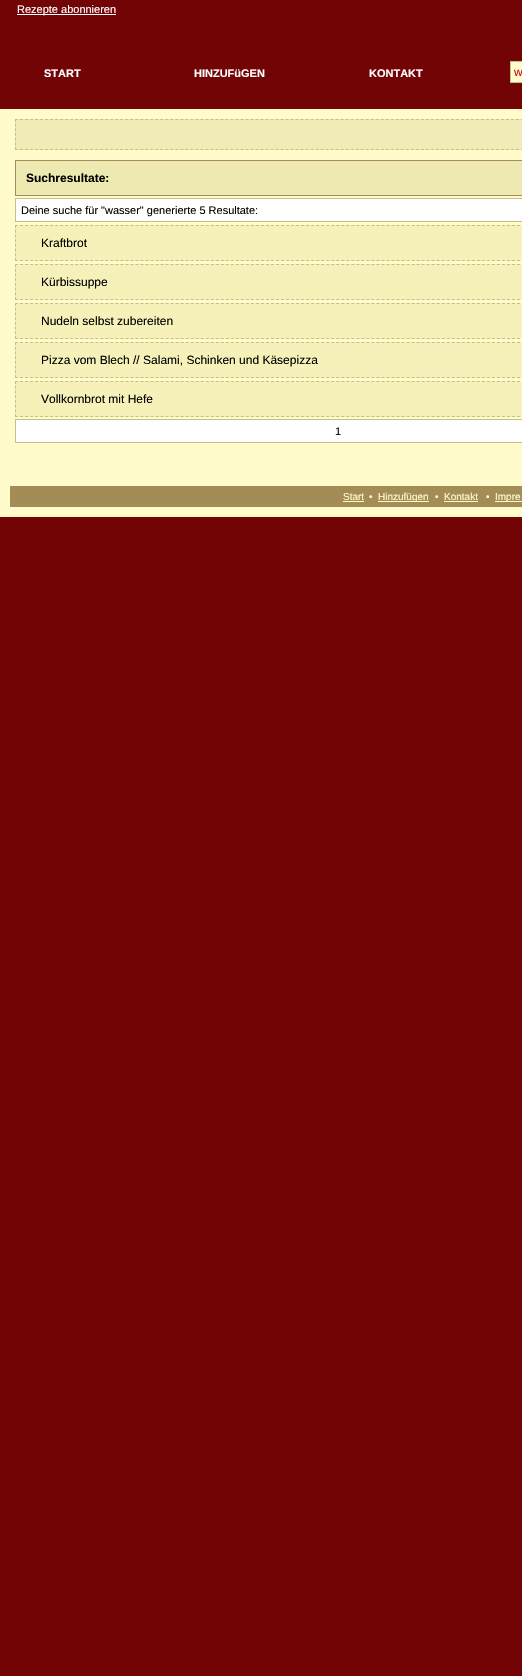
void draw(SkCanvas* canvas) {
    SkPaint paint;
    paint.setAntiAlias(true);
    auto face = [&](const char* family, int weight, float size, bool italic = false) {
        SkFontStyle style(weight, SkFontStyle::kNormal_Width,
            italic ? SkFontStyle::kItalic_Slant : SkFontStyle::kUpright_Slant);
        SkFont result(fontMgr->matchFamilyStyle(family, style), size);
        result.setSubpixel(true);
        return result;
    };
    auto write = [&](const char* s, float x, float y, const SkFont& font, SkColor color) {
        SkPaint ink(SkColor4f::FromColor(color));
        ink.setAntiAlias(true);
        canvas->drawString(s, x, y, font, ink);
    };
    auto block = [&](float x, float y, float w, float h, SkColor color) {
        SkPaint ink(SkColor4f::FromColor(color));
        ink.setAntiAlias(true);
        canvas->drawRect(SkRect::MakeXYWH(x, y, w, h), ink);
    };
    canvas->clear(SkColorSetRGB(115, 4, 6));
    block(17, 14, 99, 1, SK_ColorWHITE);
    auto kFont1 = face("Liberation Sans", 400, 11);
    write("Rezepte abonnieren", 17, 13, kFont1, SK_ColorWHITE);
    auto kFont2 = face("Liberation Sans", 700, 11);
    write("START", 44, 77, kFont2, SK_ColorWHITE);
    write("HINZUFüGEN", 194, 77, kFont2, SK_ColorWHITE);
    write("KONTAKT", 369, 77, kFont2, SK_ColorWHITE);
    paint.setColor(SkColorSetRGB(255, 251, 203));
    canvas->drawRect(SkRect::MakeXYWH(510.5f, 61.5f, 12, 21), paint);
    paint.setStyle(SkPaint::kStroke_Style);
    paint.setStrokeWidth(1);
    paint.setColor(SkColorSetRGB(197, 192, 137));
    canvas->drawRect(SkRect::MakeXYWH(510.5f, 61.5f, 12, 21), paint);
    auto kFont3 = face("Liberation Sans", 400, 12);
    write("w", 514, 76, kFont3, SkColorSetRGB(185, 20, 24));
    block(0, 109, 522, 408, SkColorSetRGB(255, 251, 203));
    block(15, 119, 507, 31, SkColorSetRGB(241, 235, 183));
    paint.setPathEffect(SkDashPathEffect::Make({{3, 2.01f}}, 0));
    canvas->drawPath(SkPathBuilder().moveTo(15, 119.5f).lineTo(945, 119.5f).detach(), paint);
    paint.setPathEffect(nullptr);
    paint.setPathEffect(SkDashPathEffect::Make({{3, 2.01f}}, 0));
    canvas->drawPath(SkPathBuilder().moveTo(15, 149.5f).lineTo(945, 149.5f).detach(), paint);
    paint.setPathEffect(nullptr);
    paint.setPathEffect(SkDashPathEffect::Make({{3, 1.67f}}, 0));
    canvas->drawPath(SkPathBuilder().moveTo(15.5f, 119).lineTo(15.5f, 150).detach(), paint);
    paint.setPathEffect(nullptr);
    paint.setStyle(SkPaint::kFill_Style);
    paint.setColor(SkColorSetRGB(238, 233, 177));
    canvas->drawRect(SkRect::MakeXYWH(15.5f, 160.5f, 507, 35), paint);
    paint.setStyle(SkPaint::kStroke_Style);
    paint.setColor(SkColorSetRGB(164, 140, 87));
    canvas->drawRect(SkRect::MakeXYWH(15.5f, 160.5f, 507, 35), paint);
    auto kFont4 = face("Liberation Sans", 700, 12);
    write("Suchresultate:", 26, 182, kFont4, SK_ColorBLACK);
    paint.setStyle(SkPaint::kFill_Style);
    paint.setColor(SK_ColorWHITE);
    canvas->drawRect(SkRect::MakeXYWH(15.5f, 198.5f, 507, 23), paint);
    paint.setStyle(SkPaint::kStroke_Style);
    paint.setColor(SkColorSetRGB(197, 192, 137));
    canvas->drawRect(SkRect::MakeXYWH(15.5f, 198.5f, 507, 23), paint);
    write("Deine suche für \"wasser\" generierte 5 Resultate:", 21, 214, kFont1, SK_ColorBLACK);
    block(15, 225, 507, 36, SkColorSetRGB(245, 241, 185));
    paint.setPathEffect(SkDashPathEffect::Make({{3, 2.02f}}, 0));
    canvas->drawPath(SkPathBuilder().moveTo(15, 225.5f).lineTo(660, 225.5f).detach(), paint);
    paint.setPathEffect(nullptr);
    paint.setPathEffect(SkDashPathEffect::Make({{3, 2.02f}}, 0));
    canvas->drawPath(SkPathBuilder().moveTo(15, 260.5f).lineTo(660, 260.5f).detach(), paint);
    paint.setPathEffect(nullptr);
    paint.setPathEffect(SkDashPathEffect::Make({{3, 1.71f}}, 0));
    canvas->drawPath(SkPathBuilder().moveTo(15.5f, 225).lineTo(15.5f, 261).detach(), paint);
    paint.setPathEffect(nullptr);
    write("Kraftbrot", 41, 247, kFont3, SK_ColorBLACK);
    block(15, 264, 507, 36, SkColorSetRGB(245, 241, 185));
    paint.setPathEffect(SkDashPathEffect::Make({{3, 2.02f}}, 0));
    canvas->drawPath(SkPathBuilder().moveTo(15, 264.5f).lineTo(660, 264.5f).detach(), paint);
    paint.setPathEffect(nullptr);
    paint.setPathEffect(SkDashPathEffect::Make({{3, 2.02f}}, 0));
    canvas->drawPath(SkPathBuilder().moveTo(15, 299.5f).lineTo(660, 299.5f).detach(), paint);
    paint.setPathEffect(nullptr);
    paint.setPathEffect(SkDashPathEffect::Make({{3, 1.71f}}, 0));
    canvas->drawPath(SkPathBuilder().moveTo(15.5f, 264).lineTo(15.5f, 300).detach(), paint);
    paint.setPathEffect(nullptr);
    write("Kürbissuppe", 41, 286, kFont3, SK_ColorBLACK);
    block(15, 303, 507, 36, SkColorSetRGB(245, 241, 185));
    paint.setPathEffect(SkDashPathEffect::Make({{3, 2.02f}}, 0));
    canvas->drawPath(SkPathBuilder().moveTo(15, 303.5f).lineTo(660, 303.5f).detach(), paint);
    paint.setPathEffect(nullptr);
    paint.setPathEffect(SkDashPathEffect::Make({{3, 2.02f}}, 0));
    canvas->drawPath(SkPathBuilder().moveTo(15, 338.5f).lineTo(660, 338.5f).detach(), paint);
    paint.setPathEffect(nullptr);
    paint.setPathEffect(SkDashPathEffect::Make({{3, 1.71f}}, 0));
    canvas->drawPath(SkPathBuilder().moveTo(15.5f, 303).lineTo(15.5f, 339).detach(), paint);
    paint.setPathEffect(nullptr);
    write("Nudeln selbst zubereiten", 41, 325, kFont3, SK_ColorBLACK);
    block(15, 342, 507, 36, SkColorSetRGB(245, 241, 185));
    paint.setPathEffect(SkDashPathEffect::Make({{3, 2.02f}}, 0));
    canvas->drawPath(SkPathBuilder().moveTo(15, 342.5f).lineTo(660, 342.5f).detach(), paint);
    paint.setPathEffect(nullptr);
    paint.setPathEffect(SkDashPathEffect::Make({{3, 2.02f}}, 0));
    canvas->drawPath(SkPathBuilder().moveTo(15, 377.5f).lineTo(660, 377.5f).detach(), paint);
    paint.setPathEffect(nullptr);
    paint.setPathEffect(SkDashPathEffect::Make({{3, 1.71f}}, 0));
    canvas->drawPath(SkPathBuilder().moveTo(15.5f, 342).lineTo(15.5f, 378).detach(), paint);
    paint.setPathEffect(nullptr);
    write("Pizza vom Blech // Salami, Schinken und Käsepizza", 41, 364, kFont3, SK_ColorBLACK);
    block(15, 381, 507, 36, SkColorSetRGB(245, 241, 185));
    paint.setPathEffect(SkDashPathEffect::Make({{3, 2.02f}}, 0));
    canvas->drawPath(SkPathBuilder().moveTo(15, 381.5f).lineTo(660, 381.5f).detach(), paint);
    paint.setPathEffect(nullptr);
    paint.setPathEffect(SkDashPathEffect::Make({{3, 2.02f}}, 0));
    canvas->drawPath(SkPathBuilder().moveTo(15, 416.5f).lineTo(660, 416.5f).detach(), paint);
    paint.setPathEffect(nullptr);
    paint.setPathEffect(SkDashPathEffect::Make({{3, 1.71f}}, 0));
    canvas->drawPath(SkPathBuilder().moveTo(15.5f, 381).lineTo(15.5f, 417).detach(), paint);
    paint.setPathEffect(nullptr);
    write("Vollkornbrot mit Hefe", 41, 403, kFont3, SK_ColorBLACK);
    paint.setStyle(SkPaint::kFill_Style);
    paint.setColor(SK_ColorWHITE);
    canvas->drawRect(SkRect::MakeXYWH(15.5f, 419.5f, 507, 23), paint);
    paint.setStyle(SkPaint::kStroke_Style);
    paint.setColor(SkColorSetRGB(197, 192, 137));
    canvas->drawRect(SkRect::MakeXYWH(15.5f, 419.5f, 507, 23), paint);
    write("1", 335, 435, kFont1, SK_ColorBLACK);
    block(10, 486, 512, 21, SkColorSetRGB(164, 140, 87));
    auto kFont5 = face("Liberation Sans", 400, 10);
    write("Start", 343, 500, kFont5, SkColorSetRGB(255, 251, 203));
    block(343, 501, 21, 1, SkColorSetRGB(255, 251, 203));
    write("•", 369, 500, kFont5, SkColorSetRGB(255, 251, 203));
    block(378, 501, 51, 1, SkColorSetRGB(255, 251, 203));
    write("Hinzufügen", 378, 500, kFont5, SkColorSetRGB(255, 251, 203));
    write("•", 435, 500, kFont5, SkColorSetRGB(255, 251, 203));
    write("Kontakt", 444, 500, kFont5, SkColorSetRGB(255, 251, 203));
    block(444, 501, 34, 1, SkColorSetRGB(255, 251, 203));
    write("•", 486, 500, kFont5, SkColorSetRGB(255, 251, 203));
    block(495, 501, 27, 1, SkColorSetRGB(255, 251, 203));
    write("Impre", 495, 500, kFont5, SkColorSetRGB(255, 251, 203));
}
